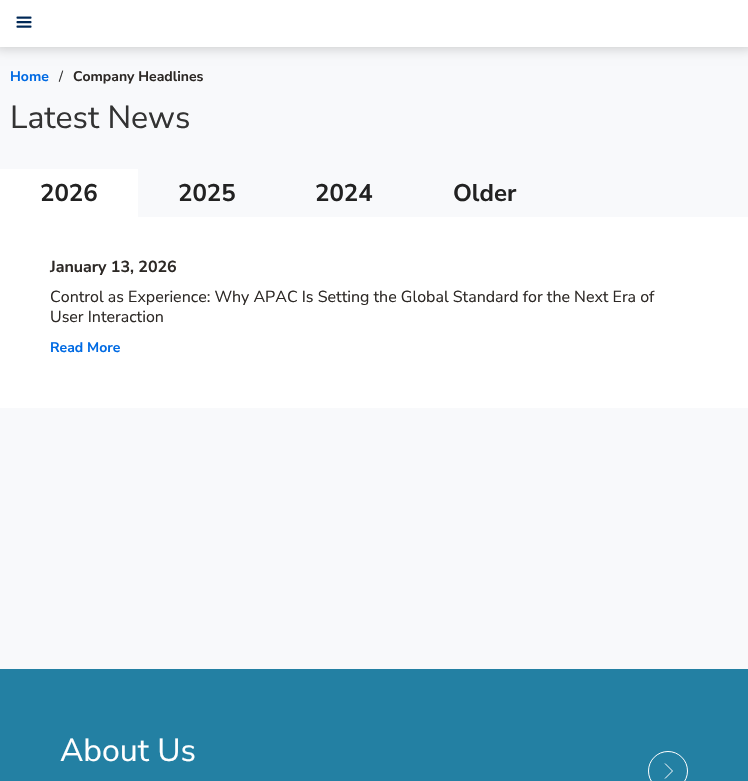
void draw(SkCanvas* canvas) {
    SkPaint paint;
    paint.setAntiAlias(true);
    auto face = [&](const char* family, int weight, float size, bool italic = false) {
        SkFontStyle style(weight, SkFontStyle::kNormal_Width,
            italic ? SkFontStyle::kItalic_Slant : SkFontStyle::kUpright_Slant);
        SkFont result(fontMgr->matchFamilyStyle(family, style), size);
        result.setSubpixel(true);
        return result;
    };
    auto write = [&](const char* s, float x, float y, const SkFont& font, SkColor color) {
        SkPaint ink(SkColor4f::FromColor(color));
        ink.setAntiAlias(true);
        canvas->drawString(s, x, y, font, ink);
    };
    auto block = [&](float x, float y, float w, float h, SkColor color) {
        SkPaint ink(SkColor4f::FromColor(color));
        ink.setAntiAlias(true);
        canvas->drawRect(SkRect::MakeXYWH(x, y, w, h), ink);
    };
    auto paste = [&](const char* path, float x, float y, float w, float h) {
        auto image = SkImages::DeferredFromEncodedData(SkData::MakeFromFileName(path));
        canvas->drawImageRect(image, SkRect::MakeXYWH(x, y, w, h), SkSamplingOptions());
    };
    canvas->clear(SkColorSetRGB(248, 249, 251));
    paint.setColor(SkColorSetARGB(51, 0, 0, 0));
    paint.setMaskFilter(SkMaskFilter::MakeBlur(kNormal_SkBlurStyle, 6));
    canvas->drawRect(SkRect::MakeXYWH(-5, -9, 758, 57), paint);
    paint.setMaskFilter(nullptr);
    block(0, 0, 748, 47, SK_ColorWHITE);
    paste("pic1.png", 16, 16, 16, 12);
    auto kFont1 = face("Nunito Sans", 700, 14);
    write("Home", 10, 81, kFont1, SkColorSetRGB(0, 106, 227));
    auto kFont2 = face("Nunito Sans", 400, 14);
    write("/", 59, 81, kFont2, SkColorSetRGB(51, 51, 51));
    write("Company Headlines", 73, 81, kFont1, SkColorSetRGB(45, 41, 38));
    auto kFont3 = face("Nunito Sans", 400, 32);
    write("Latest News", 10, 128, kFont3, SkColorSetRGB(51, 51, 51));
    block(0, 169, 138, 48, SK_ColorWHITE);
    auto kFont4 = face("Nunito Sans", 700, 24);
    write("2026", 40, 201, kFont4, SkColorSetRGB(34, 34, 34));
    write("2025", 178, 201, kFont4, SkColorSetRGB(34, 34, 34));
    write("2024", 315, 201, kFont4, SkColorSetRGB(34, 34, 34));
    write("Older", 453, 201, kFont4, SkColorSetRGB(34, 34, 34));
    block(0, 217, 748, 191, SK_ColorWHITE);
    auto kFont5 = face("Nunito Sans", 700, 16);
    write("January 13, 2026", 50, 272, kFont5, SkColorSetRGB(45, 41, 38));
    auto kFont6 = face("Nunito Sans", 400, 16);
    write("Control as Experience: Why APAC Is Setting the Global Standard for the Next Era of", 50, 302, kFont6, SkColorSetRGB(45, 41, 38));
    write("User Interaction", 50, 322, kFont6, SkColorSetRGB(45, 41, 38));
    write("Read More", 50, 352, kFont1, SkColorSetRGB(0, 106, 227));
    block(0, 669, 748, 112, SkColorSetRGB(35, 128, 163));
    write("About Us", 60, 761, kFont3, SK_ColorWHITE);
    paint.setStyle(SkPaint::kStroke_Style);
    paint.setStrokeWidth(1);
    paint.setColor(SK_ColorWHITE);
    canvas->drawCircle(668, 771, 19.5f, paint);
    canvas->drawPath(SkPathBuilder().moveTo(665, 763.5f).lineTo(672.5f, 771).lineTo(665, 778.5f).detach(), paint);
}
